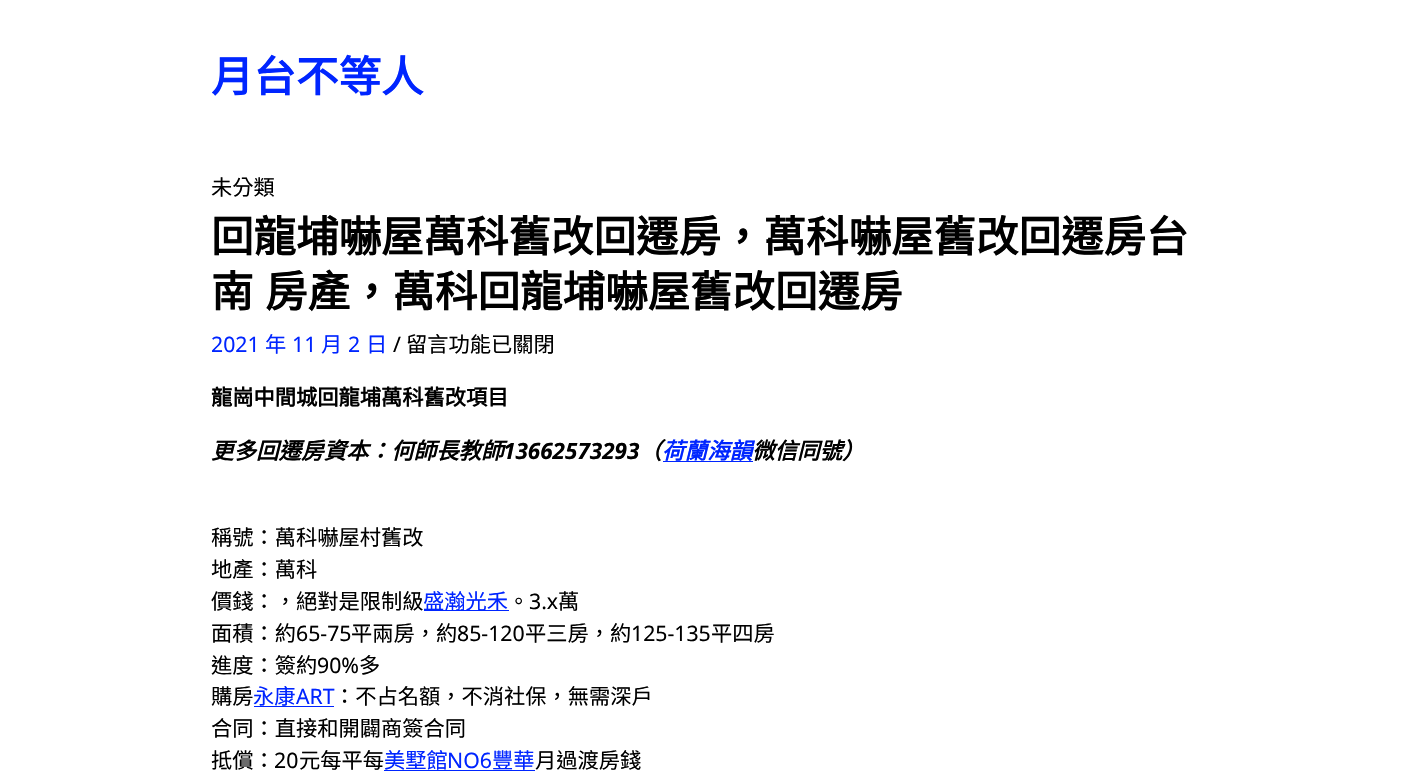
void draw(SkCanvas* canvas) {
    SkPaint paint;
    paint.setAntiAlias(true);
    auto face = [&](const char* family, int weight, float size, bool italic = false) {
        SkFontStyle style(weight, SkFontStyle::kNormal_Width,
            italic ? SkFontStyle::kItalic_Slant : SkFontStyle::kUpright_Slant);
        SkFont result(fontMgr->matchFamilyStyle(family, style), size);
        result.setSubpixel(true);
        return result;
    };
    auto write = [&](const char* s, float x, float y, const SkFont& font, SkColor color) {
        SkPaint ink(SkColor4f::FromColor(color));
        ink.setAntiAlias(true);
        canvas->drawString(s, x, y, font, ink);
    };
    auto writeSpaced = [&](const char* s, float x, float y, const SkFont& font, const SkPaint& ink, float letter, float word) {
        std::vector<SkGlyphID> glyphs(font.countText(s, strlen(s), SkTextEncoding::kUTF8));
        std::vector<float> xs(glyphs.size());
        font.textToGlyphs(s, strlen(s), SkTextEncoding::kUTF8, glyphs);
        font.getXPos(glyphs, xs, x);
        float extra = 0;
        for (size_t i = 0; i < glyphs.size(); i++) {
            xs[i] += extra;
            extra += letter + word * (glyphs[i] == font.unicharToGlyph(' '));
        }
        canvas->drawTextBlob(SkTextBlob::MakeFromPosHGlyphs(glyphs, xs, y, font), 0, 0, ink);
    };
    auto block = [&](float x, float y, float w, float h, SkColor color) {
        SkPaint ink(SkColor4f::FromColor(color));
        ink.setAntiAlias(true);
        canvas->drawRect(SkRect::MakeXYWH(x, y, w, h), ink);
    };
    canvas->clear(SK_ColorWHITE);
    auto kFont1 = face("Noto Sans CJK TC", 700, 42.5f);
    write("月台不等人", 211, 92, kFont1, SkColorSetRGB(0, 37, 255));
    auto kFont2 = face("Noto Sans CJK TC", 400, 21.25f);
    write("未分類", 211, 195, kFont2, SK_ColorBLACK);
    write("回龍埔嚇屋萬科舊改回遷房，萬科嚇屋舊改回遷房台", 211, 252, kFont1, SK_ColorBLACK);
    paint.setColor(SK_ColorBLACK);
    writeSpaced("南 房產，萬科回龍埔嚇屋舊改回遷房", 211, 307, kFont1, paint, 0, 2);
    auto kFont3 = face("Noto Sans", 400, 21.25f);
    write("2021", 211, 352, kFont3, SkColorSetRGB(0, 37, 255));
    write("年", 265, 352, kFont2, SkColorSetRGB(0, 37, 255));
    write("11", 292, 352, kFont3, SkColorSetRGB(0, 37, 255));
    write("月", 321, 352, kFont2, SkColorSetRGB(0, 37, 255));
    write("2", 348, 352, kFont3, SkColorSetRGB(0, 37, 255));
    write("日", 366, 352, kFont2, SkColorSetRGB(0, 37, 255));
    write("/", 393, 352, kFont3, SK_ColorBLACK);
    write("留言功能已關閉", 406, 352, kFont2, SK_ColorBLACK);
    auto kFont4 = face("Noto Sans CJK TC", 700, 21.25f);
    write("龍崗中間城回龍埔萬科舊改項目", 211, 405, kFont4, SK_ColorBLACK);
    auto kFont5 = face("Noto Sans CJK TC", 700, 22.5f, true);
    write("更多回遷房資本：何師長教師", 211, 459, kFont5, SK_ColorBLACK);
    auto kFont6 = face("Noto Sans", 700, 22.5f, true);
    write("13662573293", 503, 459, kFont6, SK_ColorBLACK);
    write("（", 639, 459, kFont5, SK_ColorBLACK);
    block(663, 461, 90, 1, SkColorSetRGB(0, 37, 255));
    write("荷蘭海韻", 662, 459, kFont5, SkColorSetRGB(0, 37, 255));
    write("微信同號）", 752, 459, kFont5, SK_ColorBLACK);
    write("稱號：萬科嚇屋村舊改", 211, 545, kFont2, SK_ColorBLACK);
    write("地產：萬科", 211, 577, kFont2, SK_ColorBLACK);
    write("價錢：，絕對是限制級", 211, 609, kFont2, SK_ColorBLACK);
    block(424, 610, 85, 1, SkColorSetRGB(0, 37, 255));
    write("盛瀚光禾", 423, 609, kFont2, SkColorSetRGB(0, 37, 255));
    write("。", 508, 609, kFont2, SK_ColorBLACK);
    write("3.x", 529, 609, kFont3, SK_ColorBLACK);
    write("萬", 558, 609, kFont2, SK_ColorBLACK);
    write("面積：約", 211, 641, kFont2, SK_ColorBLACK);
    write("65-75", 296, 641, kFont3, SK_ColorBLACK);
    write("平兩房，約", 351, 641, kFont2, SK_ColorBLACK);
    write("85-120", 457, 641, kFont3, SK_ColorBLACK);
    write("平三房，約", 525, 641, kFont2, SK_ColorBLACK);
    write("125-135", 631, 641, kFont3, SK_ColorBLACK);
    write("平四房", 711, 641, kFont2, SK_ColorBLACK);
    write("進度：簽約", 211, 673, kFont2, SK_ColorBLACK);
    write("90%", 317, 673, kFont3, SK_ColorBLACK);
    write("多", 359, 673, kFont2, SK_ColorBLACK);
    write("購房", 211, 704, kFont2, SK_ColorBLACK);
    write("永康", 253, 704, kFont2, SkColorSetRGB(0, 37, 255));
    write("ART", 296, 704, kFont3, SkColorSetRGB(0, 37, 255));
    block(254, 706, 80, 1, SkColorSetRGB(0, 37, 255));
    write("：不占名額，不消社保，無需深戶", 334, 704, kFont2, SK_ColorBLACK);
    write("合同：直接和開闢商簽合同", 211, 736, kFont2, SK_ColorBLACK);
    write("抵償：", 211, 768, kFont2, SK_ColorBLACK);
    write("20", 274, 768, kFont3, SK_ColorBLACK);
    write("元每平每", 299, 768, kFont2, SK_ColorBLACK);
    write("美墅館", 384, 768, kFont2, SkColorSetRGB(0, 37, 255));
    write("NO6", 447, 768, kFont3, SkColorSetRGB(0, 37, 255));
    block(384, 770, 151, 1, SkColorSetRGB(0, 37, 255));
    write("豐華", 492, 768, kFont2, SkColorSetRGB(0, 37, 255));
    write("月過渡房錢", 535, 768, kFont2, SK_ColorBLACK);
}
